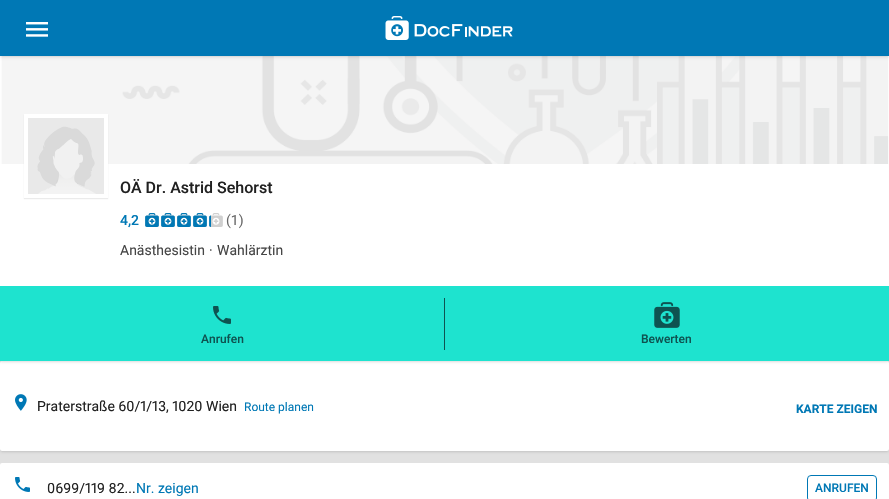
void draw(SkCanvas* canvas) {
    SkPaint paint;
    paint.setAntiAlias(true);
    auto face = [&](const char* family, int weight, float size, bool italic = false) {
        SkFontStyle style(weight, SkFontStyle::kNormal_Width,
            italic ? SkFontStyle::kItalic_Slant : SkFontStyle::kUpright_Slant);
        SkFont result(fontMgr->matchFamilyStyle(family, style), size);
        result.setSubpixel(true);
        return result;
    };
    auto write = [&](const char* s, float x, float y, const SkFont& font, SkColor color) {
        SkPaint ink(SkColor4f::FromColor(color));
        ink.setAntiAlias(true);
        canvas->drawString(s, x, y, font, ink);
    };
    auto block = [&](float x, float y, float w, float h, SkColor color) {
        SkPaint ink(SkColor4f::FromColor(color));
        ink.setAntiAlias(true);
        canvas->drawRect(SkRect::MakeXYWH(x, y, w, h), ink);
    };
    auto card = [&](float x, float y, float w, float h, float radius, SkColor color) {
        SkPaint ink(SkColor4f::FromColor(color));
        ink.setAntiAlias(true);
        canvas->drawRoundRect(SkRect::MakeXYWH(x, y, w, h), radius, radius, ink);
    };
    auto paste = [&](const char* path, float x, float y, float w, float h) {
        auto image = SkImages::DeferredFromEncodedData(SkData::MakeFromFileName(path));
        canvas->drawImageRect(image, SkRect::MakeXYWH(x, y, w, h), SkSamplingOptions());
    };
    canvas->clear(SkColorSetRGB(225, 225, 225));
    paint.setColor(SkColorSetARGB(26, 0, 0, 0));
    paint.setMaskFilter(SkMaskFilter::MakeBlur(kNormal_SkBlurStyle, 1));
    canvas->drawRoundRect(SkRect::MakeXYWH(1, 363, 887, 88), 1, 1, paint);
    paint.setMaskFilter(nullptr);
    paint.setMaskFilter(SkMaskFilter::MakeBlur(kNormal_SkBlurStyle, 1.5f));
    canvas->drawRoundRect(SkRect::MakeXYWH(0, 362, 889, 90), 2, 2, paint);
    paint.setMaskFilter(nullptr);
    card(0, 361, 889, 90, 2, SK_ColorWHITE);
    paint.setMaskFilter(SkMaskFilter::MakeBlur(kNormal_SkBlurStyle, 1));
    canvas->drawRoundRect(SkRect::MakeXYWH(1, 58, 887, 303), 1, 1, paint);
    paint.setMaskFilter(nullptr);
    paint.setMaskFilter(SkMaskFilter::MakeBlur(kNormal_SkBlurStyle, 1.5f));
    canvas->drawRoundRect(SkRect::MakeXYWH(0, 57, 889, 305), 2, 2, paint);
    paint.setMaskFilter(nullptr);
    paste("pic3.png", 0, 56, 889, 108);
    paint.setMaskFilter(SkMaskFilter::MakeBlur(kNormal_SkBlurStyle, 1));
    canvas->drawRect(SkRect::MakeXYWH(1, 2, 887, 54), paint);
    paint.setMaskFilter(nullptr);
    paint.setMaskFilter(SkMaskFilter::MakeBlur(kNormal_SkBlurStyle, 1.5f));
    canvas->drawRect(SkRect::MakeXYWH(0, 1, 889, 56), paint);
    paint.setMaskFilter(nullptr);
    block(0, 0, 889, 56, SkColorSetRGB(0, 120, 181));
    paste("pic1.png", 26, 22, 22, 15);
    paste("pic2.png", 385, 16, 128, 24);
    block(0, 164, 889, 122, SK_ColorWHITE);
    paint.setColor(SkColorSetARGB(20, 0, 0, 0));
    paint.setMaskFilter(SkMaskFilter::MakeBlur(kNormal_SkBlurStyle, 0.5f));
    canvas->drawRect(SkRect::MakeXYWH(24, 115, 84, 84), paint);
    paint.setMaskFilter(nullptr);
    block(24, 114, 84, 84, SK_ColorWHITE);
    block(28, 118, 76, 76, SkColorSetRGB(240, 240, 240));
    paste("pic4.png", 28, 118, 76, 76);
    auto kFont1 = face("Roboto", 500, 16);
    write("OÄ Dr. Astrid Sehorst", 120, 193, kFont1, SkColorSetRGB(33, 33, 33));
    auto kFont2 = face("Roboto", 500, 14);
    write("4,2", 120, 225, kFont2, SkColorSetRGB(0, 120, 181));
    paste("pic5.png", 145, 213, 78, 14);
    paste("pic6.png", 145, 213, 66, 14);
    auto kFont3 = face("Roboto", 400, 14);
    write("(1)", 226, 225, kFont3, SkColorSetRGB(104, 104, 104));
    write("Anästhesistin", 120, 255, kFont3, SkColorSetRGB(70, 70, 70));
    write("·", 209, 255, kFont3, SkColorSetRGB(70, 70, 70));
    write("Wahlärztin", 217, 255, kFont3, SkColorSetRGB(70, 70, 70));
    block(0, 286, 889, 75, SkColorSetRGB(30, 227, 207));
    paste("pic7.png", 213, 306, 18, 18);
    block(444, 298, 1, 52, SkColorSetRGB(14, 83, 81));
    auto kFont4 = face("Roboto", 500, 12);
    write("Anrufen", 201, 343, kFont4, SkColorSetRGB(14, 83, 81));
    paste("pic8.png", 654, 302, 26, 26);
    write("Bewerten", 641, 343, kFont4, SkColorSetRGB(14, 83, 81));
    paste("pic9.png", 15, 394, 12, 17);
    auto kFont5 = face("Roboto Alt", 400, 14);
    write("Praterstraße 60/1/13, 1020 Wien", 37, 411, kFont5, SkColorSetRGB(33, 33, 33));
    auto kFont6 = face("Roboto", 400, 12);
    write("Route planen", 244, 411, kFont6, SkColorSetRGB(0, 120, 181));
    auto kFont7 = face("Roboto", 700, 12);
    write("KARTE ZEIGEN", 796, 413, kFont7, SkColorSetRGB(0, 120, 181));
    card(0, 463, 889, 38, 2, SK_ColorWHITE);
    paste("pic10.png", 15, 477, 15, 15);
    write("0699/119 82...", 47, 493, kFont5, SkColorSetRGB(33, 33, 33));
    write("Nr. zeigen", 136, 493, kFont3, SkColorSetRGB(0, 120, 181));
    paint.setStyle(SkPaint::kStroke_Style);
    paint.setStrokeWidth(1);
    paint.setColor(SkColorSetRGB(0, 120, 181));
    canvas->drawRoundRect(SkRect::MakeXYWH(807.5f, 475.5f, 69, 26), 3.5f, 3.5f, paint);
    write("ANRUFEN", 815, 492, kFont4, SkColorSetRGB(0, 120, 181));
}
